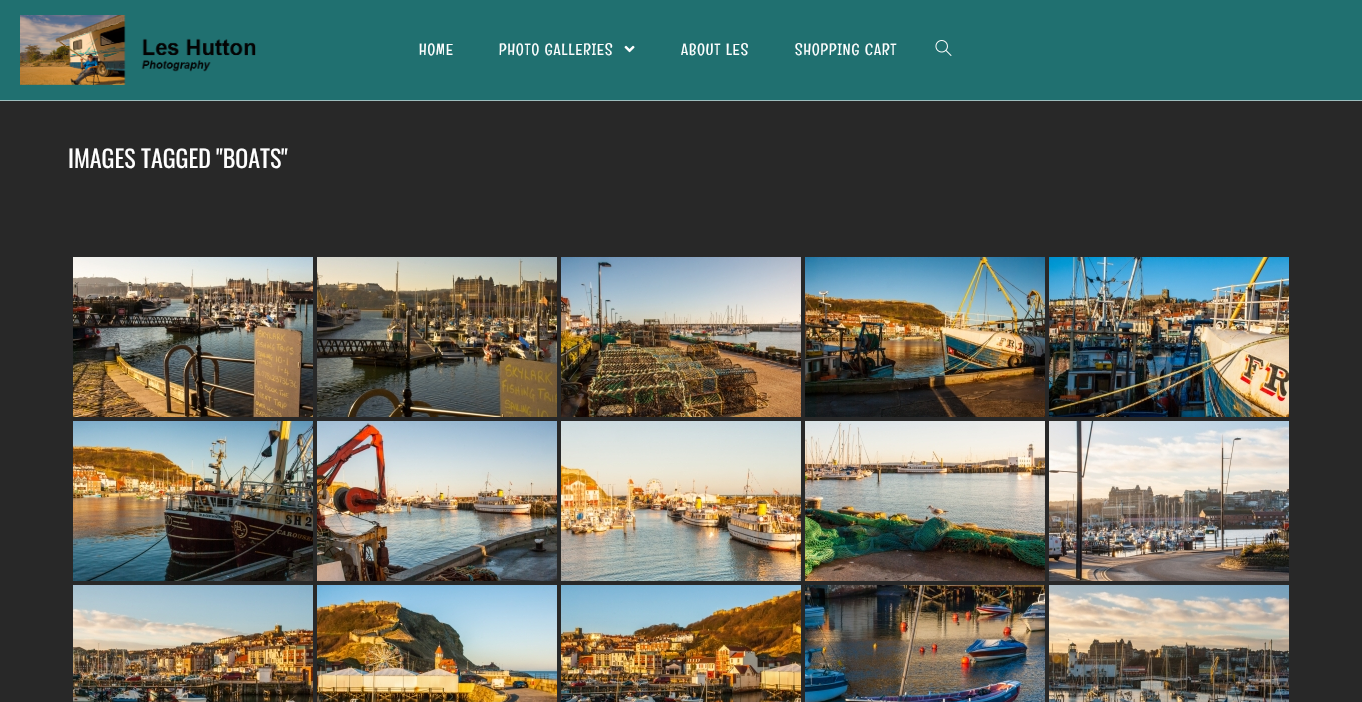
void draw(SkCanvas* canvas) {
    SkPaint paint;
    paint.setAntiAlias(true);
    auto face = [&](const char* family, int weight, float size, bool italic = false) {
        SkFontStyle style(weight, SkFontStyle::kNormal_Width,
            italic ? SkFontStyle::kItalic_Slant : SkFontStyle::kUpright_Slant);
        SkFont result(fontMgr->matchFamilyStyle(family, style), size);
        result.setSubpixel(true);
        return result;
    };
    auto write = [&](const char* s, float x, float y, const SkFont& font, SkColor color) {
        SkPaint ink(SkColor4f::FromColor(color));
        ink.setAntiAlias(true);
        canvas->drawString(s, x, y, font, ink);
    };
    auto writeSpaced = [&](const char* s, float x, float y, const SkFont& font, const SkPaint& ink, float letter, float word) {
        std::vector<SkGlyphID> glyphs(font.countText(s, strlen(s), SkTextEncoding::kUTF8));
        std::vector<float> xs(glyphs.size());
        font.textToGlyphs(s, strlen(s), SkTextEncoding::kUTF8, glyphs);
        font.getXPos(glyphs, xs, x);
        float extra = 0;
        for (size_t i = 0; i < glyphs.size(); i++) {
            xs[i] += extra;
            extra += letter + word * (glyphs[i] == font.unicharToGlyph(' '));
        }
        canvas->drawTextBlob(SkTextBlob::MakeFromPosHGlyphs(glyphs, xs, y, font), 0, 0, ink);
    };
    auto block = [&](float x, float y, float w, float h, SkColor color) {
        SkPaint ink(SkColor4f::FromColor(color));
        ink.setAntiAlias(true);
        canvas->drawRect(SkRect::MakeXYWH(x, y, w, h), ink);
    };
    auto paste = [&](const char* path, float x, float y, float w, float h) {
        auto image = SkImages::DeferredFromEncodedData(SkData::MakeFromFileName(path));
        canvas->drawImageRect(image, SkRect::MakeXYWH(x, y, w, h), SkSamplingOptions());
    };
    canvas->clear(SkColorSetRGB(40, 40, 40));
    block(0, 0, 1362, 100, SkColorSetRGB(32, 112, 112));
    block(0, 100, 1362, 1, SkColorSetRGB(158, 190, 190));
    paste("pic1.png", 20, 15, 236, 70);
    auto kFont1 = face("Englebert", 400, 16);
    paint.setColor(SK_ColorWHITE);
    writeSpaced("HOME", 419, 55, kFont1, paint, 1, 0);
    writeSpaced("PHOTO GALLERIES", 499, 55, kFont1, paint, 1, 0);
    paste("pic2.png", 624, 45, 11, 8);
    writeSpaced("ABOUT LES", 681, 55, kFont1, paint, 1, 0);
    writeSpaced("SHOPPING CART", 795, 55, kFont1, paint, 1, 0);
    paste("pic3.png", 935, 40, 17, 16);
    auto kFont2 = face("Oswald", 400, 24);
    write("IMAGES TAGGED \"BOATS\"", 68, 168, kFont2, SK_ColorWHITE);
    paste("pic4.png", 73, 257, 240, 160);
    paste("pic5.png", 317, 257, 240, 160);
    paste("pic6.png", 561, 257, 240, 160);
    paste("pic7.png", 805, 257, 240, 160);
    paste("pic8.png", 1049, 257, 240, 160);
    paste("pic9.png", 73, 421, 240, 160);
    paste("pic10.png", 317, 421, 240, 160);
    paste("pic11.png", 561, 421, 240, 160);
    paste("pic12.png", 805, 421, 240, 160);
    paste("pic13.png", 1049, 421, 240, 160);
    paste("pic14.png", 73, 585, 240, 117);
    paste("pic15.png", 317, 585, 240, 117);
    paste("pic16.png", 561, 585, 240, 117);
    paste("pic17.png", 805, 585, 240, 117);
    paste("pic18.png", 1049, 585, 240, 117);
}
